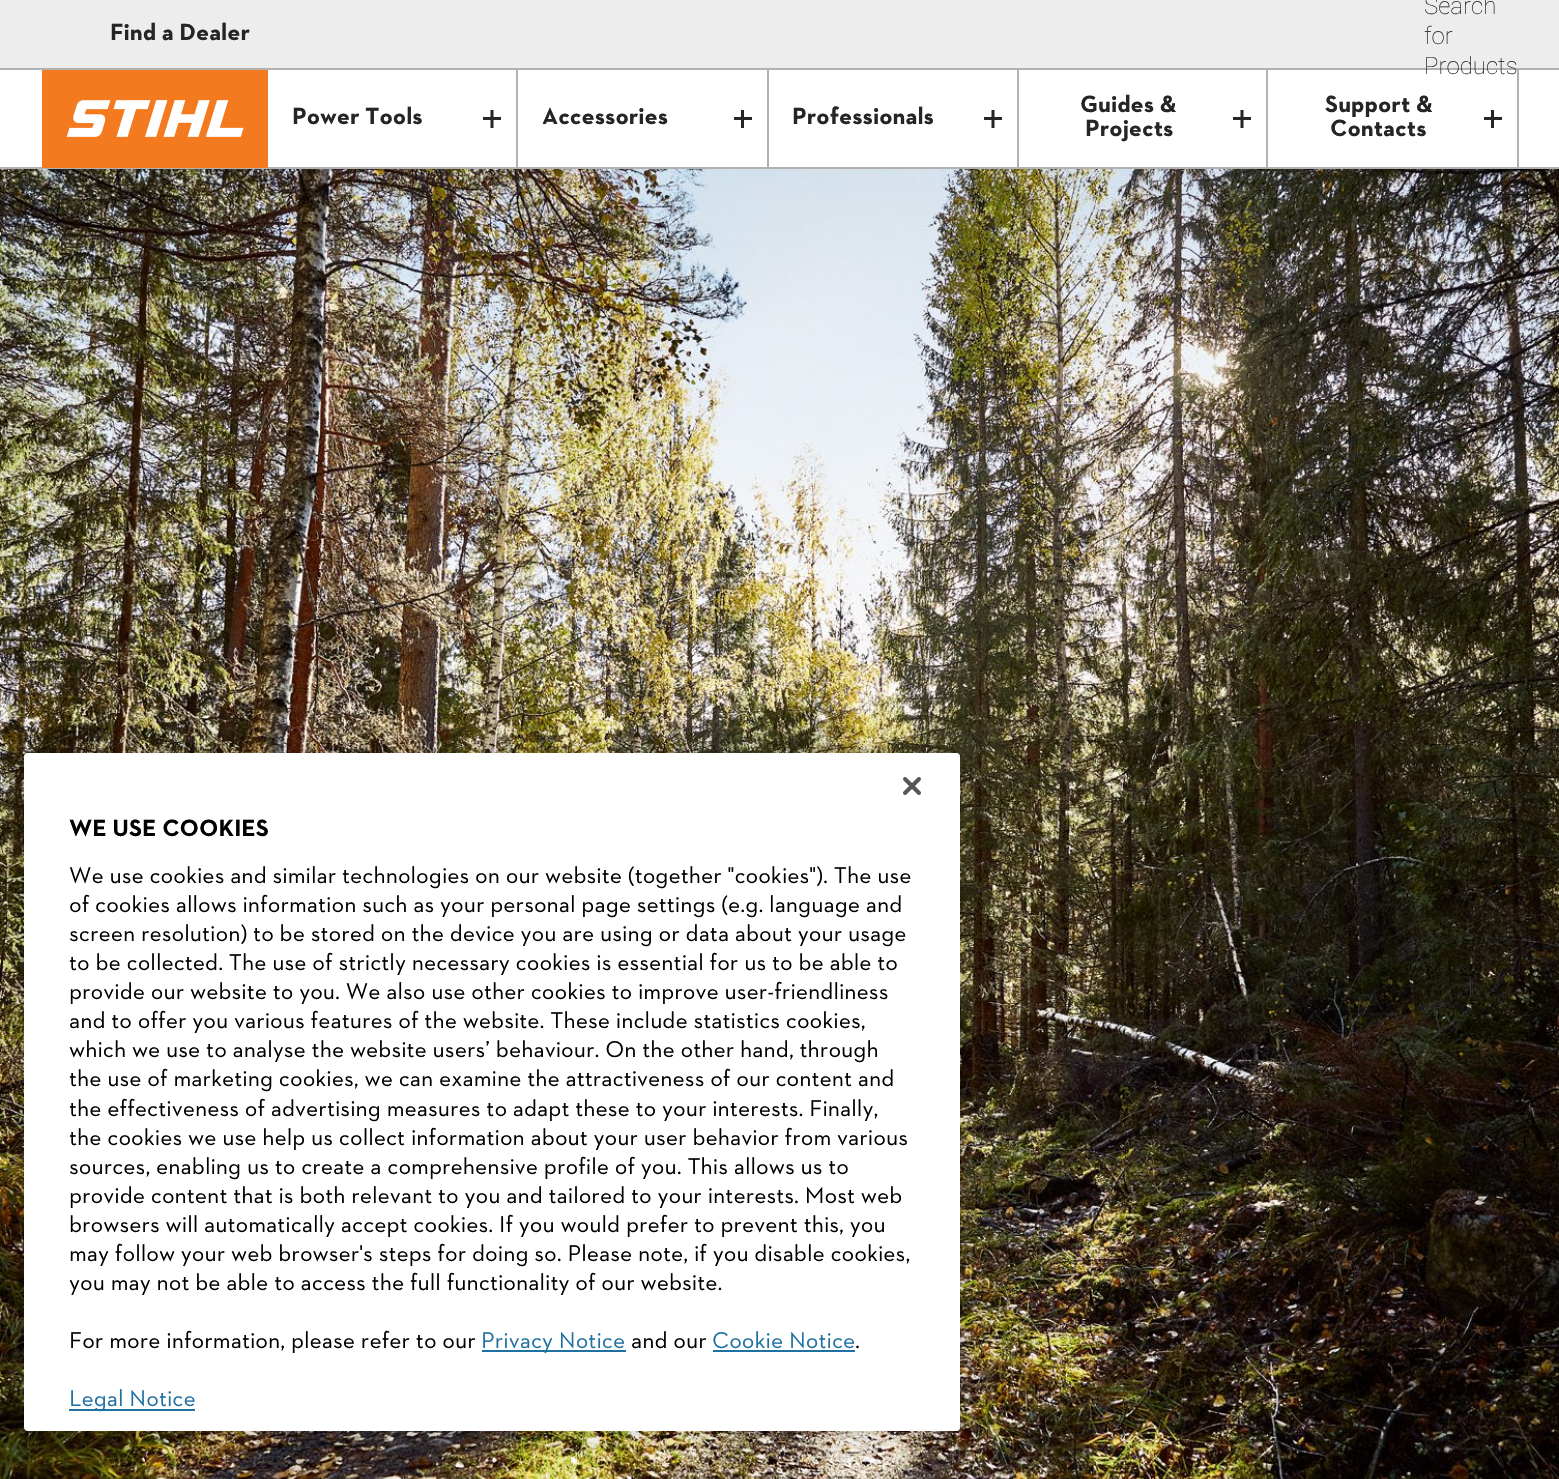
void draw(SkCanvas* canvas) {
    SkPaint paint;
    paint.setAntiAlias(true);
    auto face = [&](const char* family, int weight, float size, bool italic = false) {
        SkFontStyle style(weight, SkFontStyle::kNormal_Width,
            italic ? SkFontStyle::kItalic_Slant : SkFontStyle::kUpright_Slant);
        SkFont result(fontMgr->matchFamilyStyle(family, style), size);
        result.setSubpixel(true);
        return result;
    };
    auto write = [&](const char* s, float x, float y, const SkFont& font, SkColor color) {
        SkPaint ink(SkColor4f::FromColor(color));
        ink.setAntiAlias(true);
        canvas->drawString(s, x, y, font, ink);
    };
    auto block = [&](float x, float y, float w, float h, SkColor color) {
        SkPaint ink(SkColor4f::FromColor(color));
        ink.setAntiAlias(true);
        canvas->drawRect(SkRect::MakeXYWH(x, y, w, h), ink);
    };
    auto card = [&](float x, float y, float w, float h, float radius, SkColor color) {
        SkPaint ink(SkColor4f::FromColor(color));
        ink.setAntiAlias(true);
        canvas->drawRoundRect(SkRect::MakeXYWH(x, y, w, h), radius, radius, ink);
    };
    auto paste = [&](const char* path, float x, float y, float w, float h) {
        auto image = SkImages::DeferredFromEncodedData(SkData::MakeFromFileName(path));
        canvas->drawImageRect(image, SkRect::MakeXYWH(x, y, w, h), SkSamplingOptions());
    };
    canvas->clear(SK_ColorWHITE);
    block(0, 0, 1559, 68, SkColorSetRGB(237, 237, 237));
    block(516, 69, 2, 98, SkColorSetRGB(177, 177, 177));
    block(767, 69, 2, 98, SkColorSetRGB(177, 177, 177));
    block(1017, 69, 2, 98, SkColorSetRGB(177, 177, 177));
    block(1517, 69, 2, 98, SkColorSetRGB(177, 177, 177));
    block(1266, 69, 2, 98, SkColorSetRGB(177, 177, 177));
    block(0, 68, 1559, 2, SkColorSetRGB(177, 177, 177));
    auto kFont1 = face("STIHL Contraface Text", 700, 24);
    write("Find a Dealer", 110, 40, kFont1, SkColorSetRGB(37, 37, 37));
    auto kFont2 = face("Roboto", 100, 24);
    write("Search", 1424, 14, kFont2, SkColorSetRGB(37, 37, 37));
    write("for", 1424, 44, kFont2, SkColorSetRGB(37, 37, 37));
    write("Products", 1424, 74, kFont2, SkColorSetRGB(37, 37, 37));
    block(0, 167, 1559, 2, SkColorSetRGB(177, 177, 177));
    paste("pic1.png", 42, 70, 226, 98);
    write("Power Tools", 292, 124, kFont1, SkColorSetRGB(37, 37, 37));
    paste("pic2.png", 483, 110, 18, 18);
    write("Accessories", 542, 124, kFont1, SkColorSetRGB(37, 37, 37));
    paste("pic3.png", 734, 110, 18, 18);
    write("Professionals", 792, 124, kFont1, SkColorSetRGB(37, 37, 37));
    paste("pic2.png", 984, 110, 18, 18);
    write("Guides &", 1080, 112, kFont1, SkColorSetRGB(37, 37, 37));
    write("Projects", 1085, 136, kFont1, SkColorSetRGB(37, 37, 37));
    paste("pic2.png", 1233, 110, 18, 18);
    write("Support &", 1325, 112, kFont1, SkColorSetRGB(37, 37, 37));
    paste("pic3.png", 1484, 110, 18, 18);
    write("Contacts", 1330, 136, kFont1, SkColorSetRGB(37, 37, 37));
    paste("pic4.png", 0, 169, 1559, 1310);
    paint.setColor(SkColorSetARGB(51, 0, 0, 0));
    paint.setMaskFilter(SkMaskFilter::MakeBlur(kNormal_SkBlurStyle, 13.5f));
    canvas->drawRoundRect(SkRect::MakeXYWH(24, 753, 936, 678), 4, 4, paint);
    paint.setMaskFilter(nullptr);
    card(24, 753, 936, 678, 4, SK_ColorWHITE);
    paste("pic5.png", 903, 777, 18, 18);
    write("WE USE COOKIES", 69, 836, kFont1, SK_ColorBLACK);
    auto kFont3 = face("STIHL Contraface Text", 400, 23.3f);
    write("We use cookies and similar technologies on our website (together \"cookies\"). The use", 69, 883, kFont3, SK_ColorBLACK);
    write("of cookies allows information such as your personal page settings (e.g. language and", 69, 912, kFont3, SK_ColorBLACK);
    write("screen resolution) to be stored on the device you are using or data about your usage", 69, 941, kFont3, SK_ColorBLACK);
    write("to be collected. The use of strictly necessary cookies is essential for us to be able to", 69, 970, kFont3, SK_ColorBLACK);
    write("provide our website to you. We also use other cookies to improve user-friendliness", 69, 999, kFont3, SK_ColorBLACK);
    write("and to offer you various features of the website. These include statistics cookies,", 69, 1028, kFont3, SK_ColorBLACK);
    write("which we use to analyse the website users’ behaviour. On the other hand, through", 69, 1057, kFont3, SK_ColorBLACK);
    write("the use of marketing cookies, we can examine the attractiveness of our content and", 69, 1086, kFont3, SK_ColorBLACK);
    write("the effectiveness of advertising measures to adapt these to your interests. Finally,", 69, 1116, kFont3, SK_ColorBLACK);
    write("the cookies we use help us collect information about your user behavior from various", 69, 1145, kFont3, SK_ColorBLACK);
    write("sources, enabling us to create a comprehensive profile of you. This allows us to", 69, 1174, kFont3, SK_ColorBLACK);
    write("provide content that is both relevant to you and tailored to your interests. Most web", 69, 1203, kFont3, SK_ColorBLACK);
    write("browsers will automatically accept cookies. If you would prefer to prevent this, you", 69, 1232, kFont3, SK_ColorBLACK);
    write("may follow your web browser's steps for doing so. Please note, if you disable cookies,", 69, 1261, kFont3, SK_ColorBLACK);
    write("you may not be able to access the full functionality of our website.", 69, 1290, kFont3, SK_ColorBLACK);
    write("For more information, please refer to our", 69, 1348, kFont3, SK_ColorBLACK);
    block(482, 1350, 144, 2, SkColorSetRGB(30, 113, 161));
    write("Privacy Notice", 481, 1348, kFont3, SkColorSetRGB(30, 113, 161));
    write("and our", 631, 1348, kFont3, SK_ColorBLACK);
    write("Cookie Notice", 712, 1348, kFont3, SkColorSetRGB(30, 113, 161));
    block(713, 1350, 142, 2, SkColorSetRGB(30, 113, 161));
    write(".", 855, 1348, kFont3, SK_ColorBLACK);
    block(69, 1409, 126, 2, SkColorSetRGB(30, 113, 161));
    write("Legal Notice", 69, 1406, kFont3, SkColorSetRGB(30, 113, 161));
}
